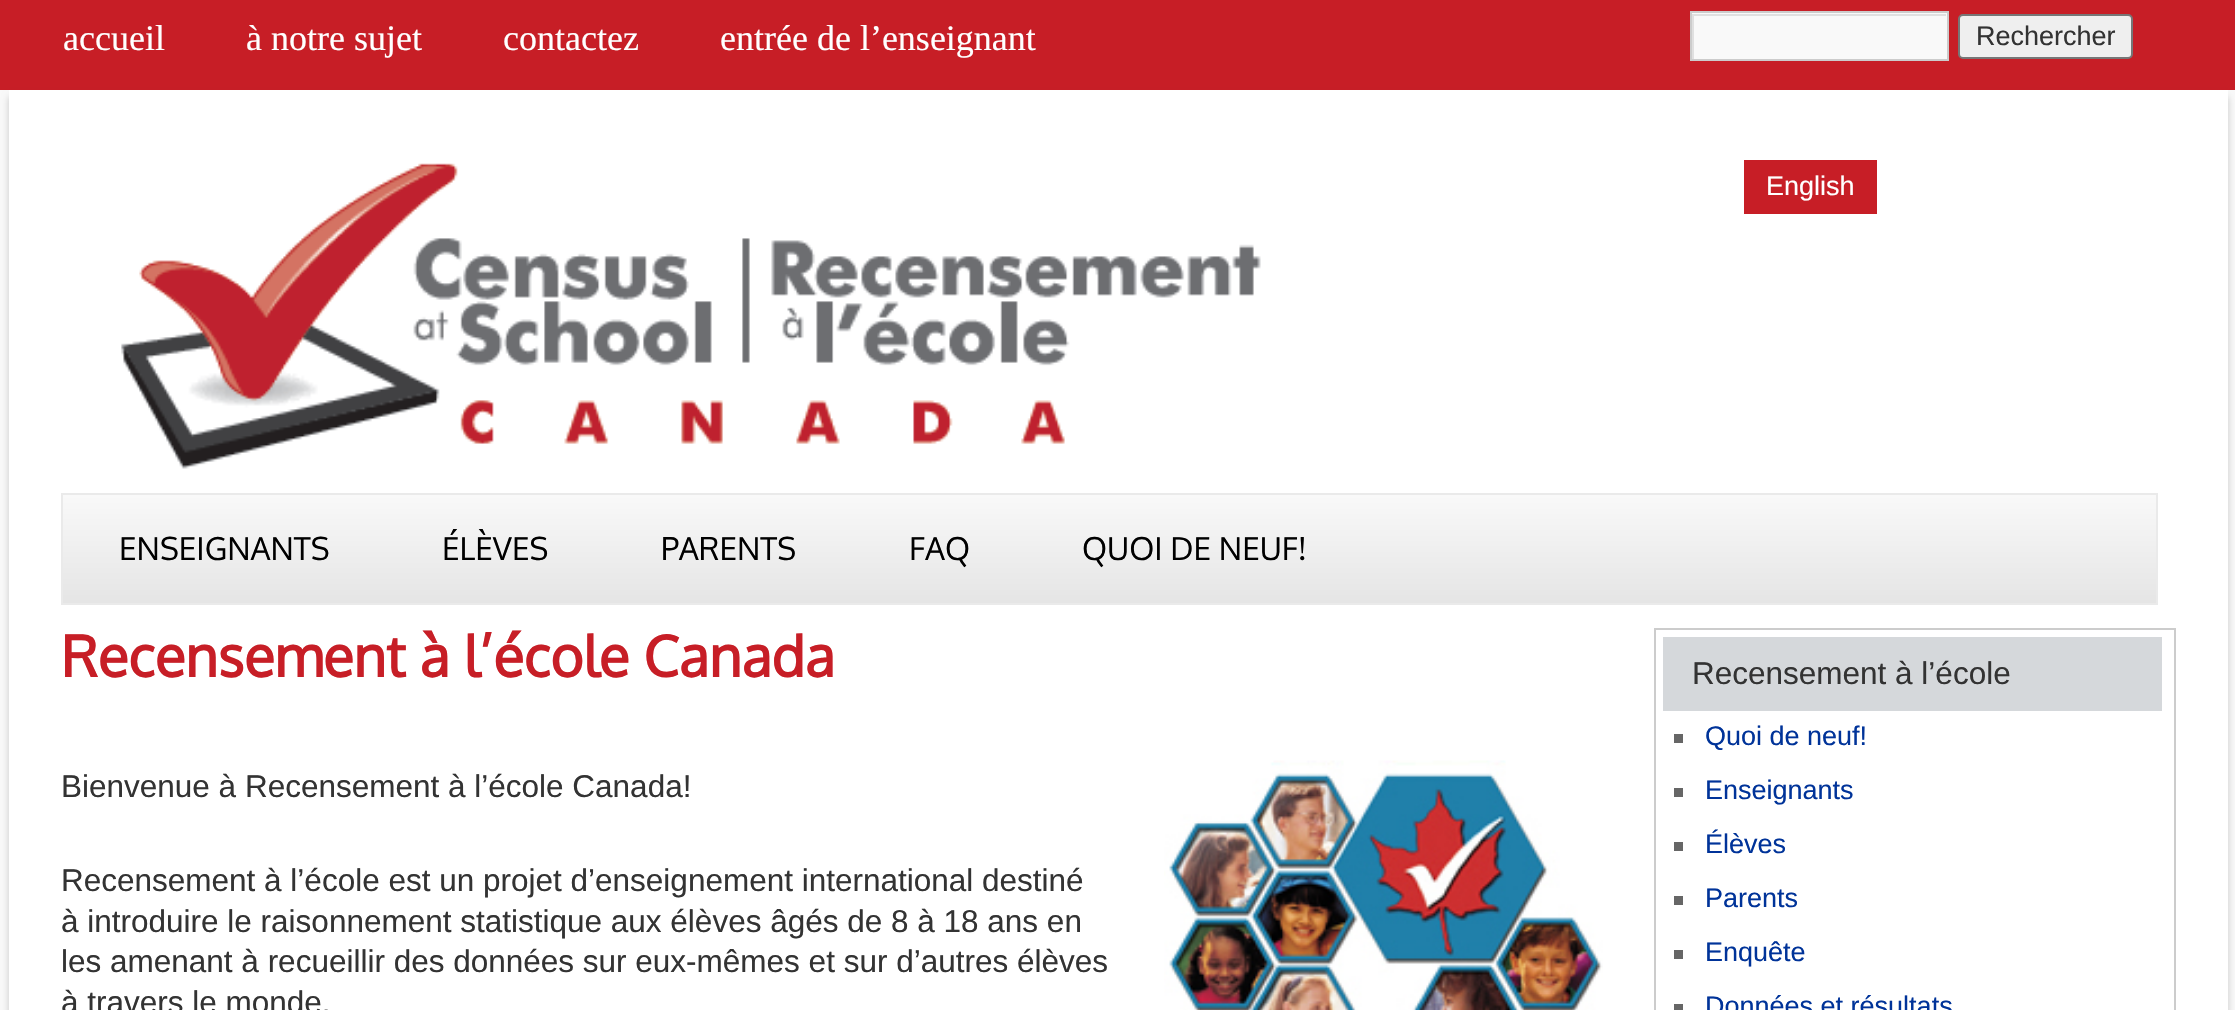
void draw(SkCanvas* canvas) {
    SkPaint paint;
    paint.setAntiAlias(true);
    auto face = [&](const char* family, int weight, float size, bool italic = false) {
        SkFontStyle style(weight, SkFontStyle::kNormal_Width,
            italic ? SkFontStyle::kItalic_Slant : SkFontStyle::kUpright_Slant);
        SkFont result(fontMgr->matchFamilyStyle(family, style), size);
        result.setSubpixel(true);
        return result;
    };
    auto write = [&](const char* s, float x, float y, const SkFont& font, SkColor color) {
        SkPaint ink(SkColor4f::FromColor(color));
        ink.setAntiAlias(true);
        canvas->drawString(s, x, y, font, ink);
    };
    auto block = [&](float x, float y, float w, float h, SkColor color) {
        SkPaint ink(SkColor4f::FromColor(color));
        ink.setAntiAlias(true);
        canvas->drawRect(SkRect::MakeXYWH(x, y, w, h), ink);
    };
    auto paste = [&](const char* path, float x, float y, float w, float h) {
        auto image = SkImages::DeferredFromEncodedData(SkData::MakeFromFileName(path));
        canvas->drawImageRect(image, SkRect::MakeXYWH(x, y, w, h), SkSamplingOptions());
    };
    canvas->clear(SkColorSetRGB(249, 249, 249));
    block(0, 0, 2235, 90, SkColorSetRGB(199, 30, 38));
    auto kFont1 = face("Liberation Serif", 400, 36);
    write("accueil", 63, 50, kFont1, SK_ColorWHITE);
    write("à notre sujet", 246, 50, kFont1, SK_ColorWHITE);
    write("contactez", 503, 50, kFont1, SK_ColorWHITE);
    write("entrée de l’enseignant", 720, 50, kFont1, SK_ColorWHITE);
    block(1692, 13, 255, 46, SkColorSetRGB(249, 249, 249));
    canvas->save();
    canvas->clipRect(SkRect::MakeXYWH(1692, 14, 254, 45));
    paint.setColor(SkColorSetRGB(224, 224, 224));
    canvas->drawPath(SkPathBuilder(SkPathFillType::kEvenOdd).moveTo(1469, -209).lineTo(2169, -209).lineTo(2169, 281).lineTo(1469, 281).close().moveTo(1694, 16).lineTo(1948, 16).lineTo(1948, 61).lineTo(1694, 61).close().detach(), paint);
    canvas->restore();
    paint.setStyle(SkPaint::kStroke_Style);
    paint.setStrokeWidth(2);
    paint.setColor(SkColorSetRGB(204, 204, 204));
    canvas->drawRect(SkRect::MakeXYWH(1691, 12, 257, 48), paint);
    paint.setStyle(SkPaint::kFill_Style);
    paint.setColor(SkColorSetRGB(239, 239, 239));
    canvas->drawRoundRect(SkRect::MakeXYWH(1959, 15, 173, 43), 4, 4, paint);
    paint.setStyle(SkPaint::kStroke_Style);
    paint.setColor(SkColorSetRGB(118, 118, 118));
    canvas->drawRoundRect(SkRect::MakeXYWH(1959, 15, 173, 43), 4, 4, paint);
    auto kFont2 = face("Liberation Sans", 400, 27);
    write("Rechercher", 1976, 45, kFont2, SkColorSetRGB(51, 51, 51));
    paint.setStyle(SkPaint::kFill_Style);
    paint.setColor(SkColorSetARGB(51, 0, 0, 0));
    paint.setMaskFilter(SkMaskFilter::MakeBlur(kNormal_SkBlurStyle, 3.5f));
    canvas->drawRect(SkRect::MakeXYWH(9, 97, 2219, 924), paint);
    paint.setMaskFilter(nullptr);
    block(9, 90, 2219, 920, SK_ColorWHITE);
    paste("pic1.png", 121, 163, 1140, 306);
    block(1744, 160, 133, 54, SkColorSetRGB(199, 30, 38));
    write("English", 1766, 195, kFont2, SK_ColorWHITE);
    {
        const SkColor colors[] = {SkColorSetRGB(249, 249, 249), SkColorSetRGB(229, 229, 229)};
        const float stops[] = {0, 1};
        const SkPoint ends[] = {{1109, 495}, {1109, 603}};
        paint.setShader(SkGradientShader::MakeLinear(ends, colors, stops, 2, SkTileMode::kClamp));
        paint.setAlpha(255);
    }
    canvas->drawRect(SkRect::MakeXYWH(63, 495, 2093, 108), paint);
    paint.setStyle(SkPaint::kStroke_Style);
    paint.setShader(nullptr);
    paint.setColor(SkColorSetRGB(234, 234, 234));
    canvas->drawRect(SkRect::MakeXYWH(62, 494, 2095, 110), paint);
    auto kFont3 = face("Oxygen", 400, 31.5f);
    write("ENSEIGNANTS", 119, 560, kFont3, SK_ColorBLACK);
    write("ÉLÈVES", 442, 560, kFont3, SK_ColorBLACK);
    write("PARENTS", 661, 560, kFont3, SK_ColorBLACK);
    write("FAQ", 909, 560, kFont3, SK_ColorBLACK);
    write("QUOI DE NEUF!", 1082, 560, kFont3, SK_ColorBLACK);
    auto kFont4 = face("Oxygen", 700, 56.25f);
    write("Recensement à l’école Canada", 61, 677, kFont4, SkColorSetRGB(199, 30, 38));
    auto kFont5 = face("Liberation Sans", 400, 31.5f);
    write("Bienvenue à Recensement à l’école Canada!", 61, 797, kFont5, SkColorSetRGB(51, 51, 51));
    paste("pic2.png", 1164, 760, 439, 250);
    write("Recensement à l’école est un projet d’enseignement international destiné", 61, 891, kFont5, SkColorSetRGB(51, 51, 51));
    write("à introduire le raisonnement statistique aux élèves âgés de 8 à 18 ans en", 61, 932, kFont5, SkColorSetRGB(51, 51, 51));
    write("les amenant à recueillir des données sur eux-mêmes et sur d’autres élèves", 61, 972, kFont5, SkColorSetRGB(51, 51, 51));
    write("à travers le monde.", 61, 1013, kFont5, SkColorSetRGB(51, 51, 51));
    paint.setColor(SkColorSetRGB(204, 204, 204));
    canvas->drawRect(SkRect::MakeXYWH(1655, 629, 520, 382), paint);
    block(1663, 637, 499, 74, SkColorSetRGB(213, 216, 219));
    write("Recensement à l’école", 1692, 684, kFont5, SkColorSetRGB(51, 51, 51));
    block(1674, 734, 9, 9, SkColorSetRGB(102, 102, 102));
    write("Quoi de neuf!", 1705, 745, kFont2, SkColorSetRGB(0, 51, 153));
    block(1674, 788, 9, 9, SkColorSetRGB(102, 102, 102));
    write("Enseignants", 1705, 799, kFont2, SkColorSetRGB(0, 51, 153));
    block(1674, 842, 9, 9, SkColorSetRGB(102, 102, 102));
    write("Élèves", 1705, 853, kFont2, SkColorSetRGB(0, 51, 153));
    block(1674, 896, 9, 9, SkColorSetRGB(102, 102, 102));
    write("Parents", 1705, 907, kFont2, SkColorSetRGB(0, 51, 153));
    block(1674, 950, 9, 9, SkColorSetRGB(102, 102, 102));
    write("Enquête", 1705, 961, kFont2, SkColorSetRGB(0, 51, 153));
    block(1674, 1004, 9, 6, SkColorSetRGB(102, 102, 102));
    write("Données et résultats", 1705, 1015, kFont2, SkColorSetRGB(0, 51, 153));
}
